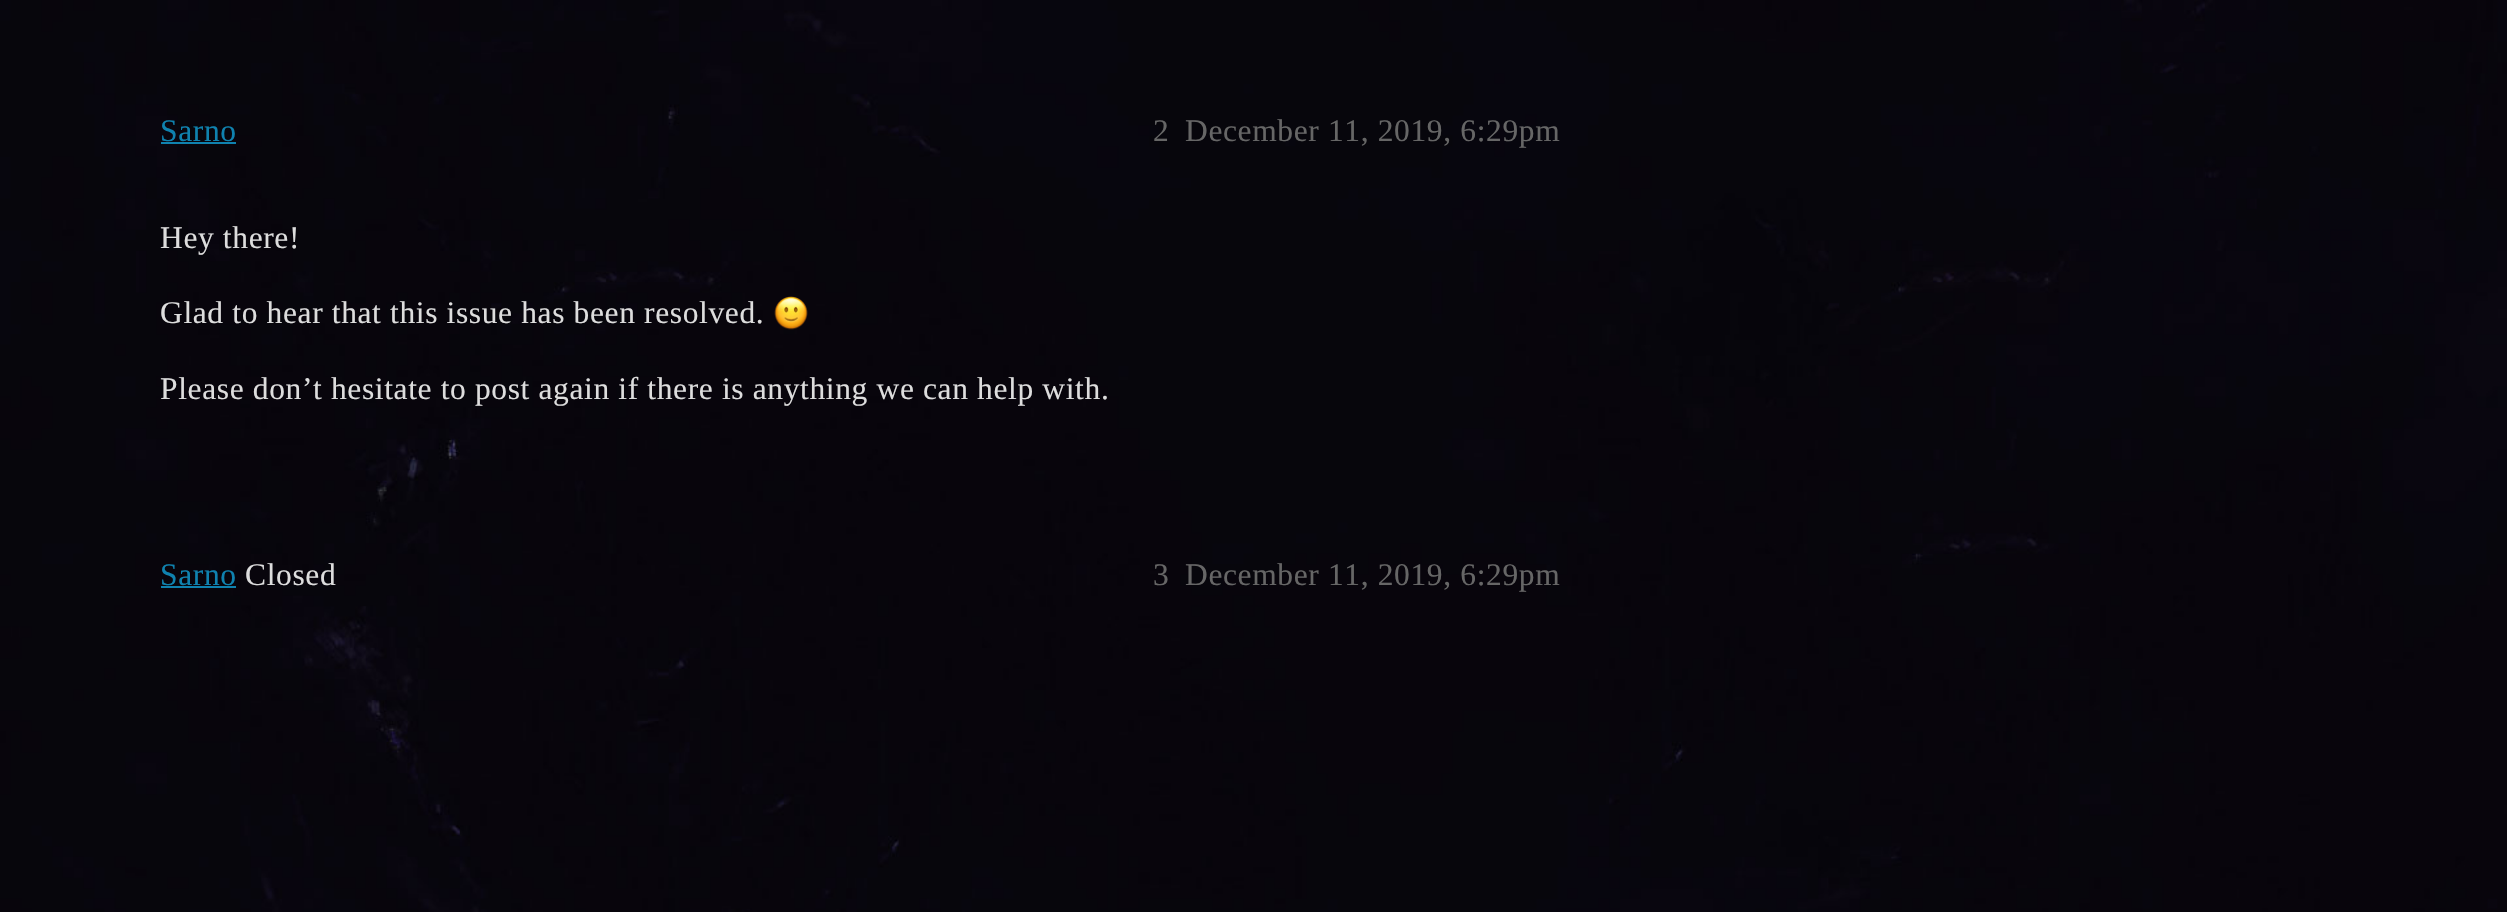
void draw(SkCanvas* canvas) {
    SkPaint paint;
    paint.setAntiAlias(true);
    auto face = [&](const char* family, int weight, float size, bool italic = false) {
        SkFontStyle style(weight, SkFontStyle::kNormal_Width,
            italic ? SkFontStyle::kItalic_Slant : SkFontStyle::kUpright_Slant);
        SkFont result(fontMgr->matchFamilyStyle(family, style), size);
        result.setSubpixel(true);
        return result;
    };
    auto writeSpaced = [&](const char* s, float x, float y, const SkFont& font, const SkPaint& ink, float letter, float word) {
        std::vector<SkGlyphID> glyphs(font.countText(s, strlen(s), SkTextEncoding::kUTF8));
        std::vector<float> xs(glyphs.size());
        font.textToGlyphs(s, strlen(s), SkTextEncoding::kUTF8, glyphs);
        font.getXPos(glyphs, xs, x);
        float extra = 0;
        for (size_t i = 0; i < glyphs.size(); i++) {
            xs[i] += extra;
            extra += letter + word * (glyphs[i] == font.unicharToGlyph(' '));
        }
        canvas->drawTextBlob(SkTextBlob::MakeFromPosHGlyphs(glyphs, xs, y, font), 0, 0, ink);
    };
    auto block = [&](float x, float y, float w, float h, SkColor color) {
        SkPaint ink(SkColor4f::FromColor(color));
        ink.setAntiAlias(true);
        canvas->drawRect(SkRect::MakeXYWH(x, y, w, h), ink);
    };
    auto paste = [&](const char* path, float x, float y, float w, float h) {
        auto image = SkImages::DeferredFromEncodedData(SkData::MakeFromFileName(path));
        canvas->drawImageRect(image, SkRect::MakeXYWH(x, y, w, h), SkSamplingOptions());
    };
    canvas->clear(SK_ColorWHITE);
    paste("pic1.png", 0, 0, 2507, 912);
    auto kFont1 = face("Liberation Serif", 400, 31.5f);
    paint.setColor(SkColorSetRGB(15, 130, 175));
    writeSpaced("Sarno", 160, 141, kFont1, paint, 0.63f, 0);
    block(161, 142, 75, 2, SkColorSetRGB(15, 130, 175));
    paint.setColor(SkColorSetRGB(102, 102, 102));
    writeSpaced("2", 1153, 141, kFont1, paint, 0.63f, 0);
    writeSpaced("December 11, 2019, 6:29pm", 1185, 141, kFont1, paint, 0.63f, 0);
    paint.setColor(SkColorSetRGB(221, 221, 221));
    writeSpaced("Hey there!", 160, 248, kFont1, paint, 0.63f, 0);
    writeSpaced("Glad to hear that this issue has been resolved.", 160, 323, kFont1, paint, 0.63f, 0);
    paste("pic2.png", 774, 296, 34, 34);
    writeSpaced("Please don’t hesitate to post again if there is anything we can help with.", 160, 399, kFont1, paint, 0.63f, 0);
    paint.setColor(SkColorSetRGB(15, 130, 175));
    writeSpaced("Sarno", 160, 585, kFont1, paint, 0.63f, 0);
    block(161, 586, 75, 2, SkColorSetRGB(15, 130, 175));
    paint.setColor(SkColorSetRGB(221, 221, 221));
    writeSpaced("Closed", 245, 585, kFont1, paint, 0.63f, 0);
    paint.setColor(SkColorSetRGB(102, 102, 102));
    writeSpaced("3", 1153, 585, kFont1, paint, 0.63f, 0);
    writeSpaced("December 11, 2019, 6:29pm", 1185, 585, kFont1, paint, 0.63f, 0);
}
